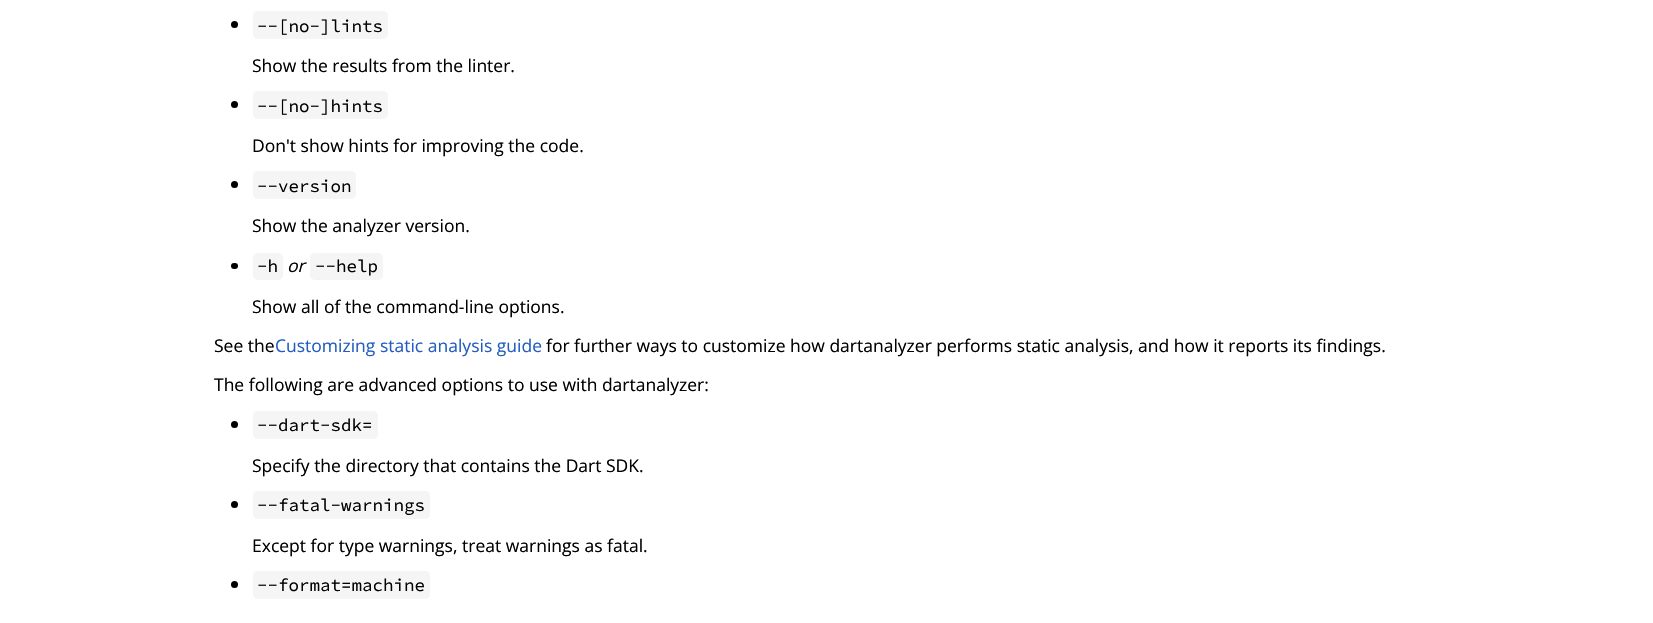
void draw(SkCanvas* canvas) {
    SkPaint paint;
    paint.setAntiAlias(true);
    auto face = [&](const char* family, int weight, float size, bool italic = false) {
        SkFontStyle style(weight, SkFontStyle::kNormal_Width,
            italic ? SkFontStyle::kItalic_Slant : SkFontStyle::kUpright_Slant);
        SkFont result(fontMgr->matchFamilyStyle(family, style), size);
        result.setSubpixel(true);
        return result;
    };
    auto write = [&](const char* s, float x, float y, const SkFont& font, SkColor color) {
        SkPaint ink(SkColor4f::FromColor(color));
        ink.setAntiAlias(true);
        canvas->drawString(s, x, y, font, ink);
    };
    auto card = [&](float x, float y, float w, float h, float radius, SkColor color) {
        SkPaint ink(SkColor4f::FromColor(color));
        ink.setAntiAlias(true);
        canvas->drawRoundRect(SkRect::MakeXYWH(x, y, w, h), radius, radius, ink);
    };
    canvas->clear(SK_ColorWHITE);
    paint.setColor(SK_ColorBLACK);
    canvas->drawCircle(234.5f, 24.5f, 3.5f, paint);
    card(253, 11, 135, 28, 5, SkColorSetRGB(245, 245, 245));
    auto kFont1 = face("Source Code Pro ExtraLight", 200, 17.5f);
    write("--[no-]lints", 257, 32, kFont1, SK_ColorBLACK);
    auto kFont2 = face("Open Sans", 400, 17.5f);
    write("Show the results from the linter.", 252, 72, kFont2, SK_ColorBLACK);
    canvas->drawCircle(234.5f, 104.5f, 3.5f, paint);
    card(253, 91, 135, 28, 5, SkColorSetRGB(245, 245, 245));
    write("--[no-]hints", 257, 112, kFont1, SK_ColorBLACK);
    write("Don't show hints for improving the code.", 252, 152, kFont2, SK_ColorBLACK);
    canvas->drawCircle(234.5f, 184.5f, 3.5f, paint);
    card(253, 171, 103, 28, 5, SkColorSetRGB(245, 245, 245));
    write("--version", 257, 192, kFont1, SK_ColorBLACK);
    write("Show the analyzer version.", 252, 232, kFont2, SK_ColorBLACK);
    card(231, 263, 7, 6, 3, SK_ColorBLACK);
    card(253, 253, 30, 27, 5, SkColorSetRGB(245, 245, 245));
    write("-h", 257, 272, kFont1, SK_ColorBLACK);
    auto kFont3 = face("Open Sans", 400, 17.5f, true);
    write("or", 287, 272, kFont3, SK_ColorBLACK);
    card(310, 253, 73, 27, 5, SkColorSetRGB(245, 245, 245));
    write("--help", 315, 272, kFont1, SK_ColorBLACK);
    write("Show all of the command-line options.", 252, 313, kFont2, SK_ColorBLACK);
    write("See the", 214, 352, kFont2, SK_ColorBLACK);
    write("Customizing static analysis guide", 275, 352, kFont2, SkColorSetRGB(36, 93, 193));
    write("for further ways to customize how dartanalyzer performs static analysis, and how it reports its findings.", 546, 352, kFont2, SK_ColorBLACK);
    write("The following are advanced options to use with dartanalyzer:", 214, 391, kFont2, SK_ColorBLACK);
    canvas->drawCircle(234.5f, 424.5f, 3.5f, paint);
    card(253, 411, 125, 28, 5, SkColorSetRGB(245, 245, 245));
    write("--dart-sdk=", 257, 431, kFont1, SK_ColorBLACK);
    write("Specify the directory that contains the Dart SDK.", 252, 472, kFont2, SK_ColorBLACK);
    canvas->drawCircle(234.5f, 504.5f, 3.5f, paint);
    card(253, 491, 177, 28, 5, SkColorSetRGB(245, 245, 245));
    write("--fatal-warnings", 257, 511, kFont1, SK_ColorBLACK);
    write("Except for type warnings, treat warnings as fatal.", 252, 552, kFont2, SK_ColorBLACK);
    canvas->drawCircle(234.5f, 584.5f, 3.5f, paint);
    card(253, 571, 177, 28, 5, SkColorSetRGB(245, 245, 245));
    write("--format=machine", 257, 591, kFont1, SK_ColorBLACK);
}
